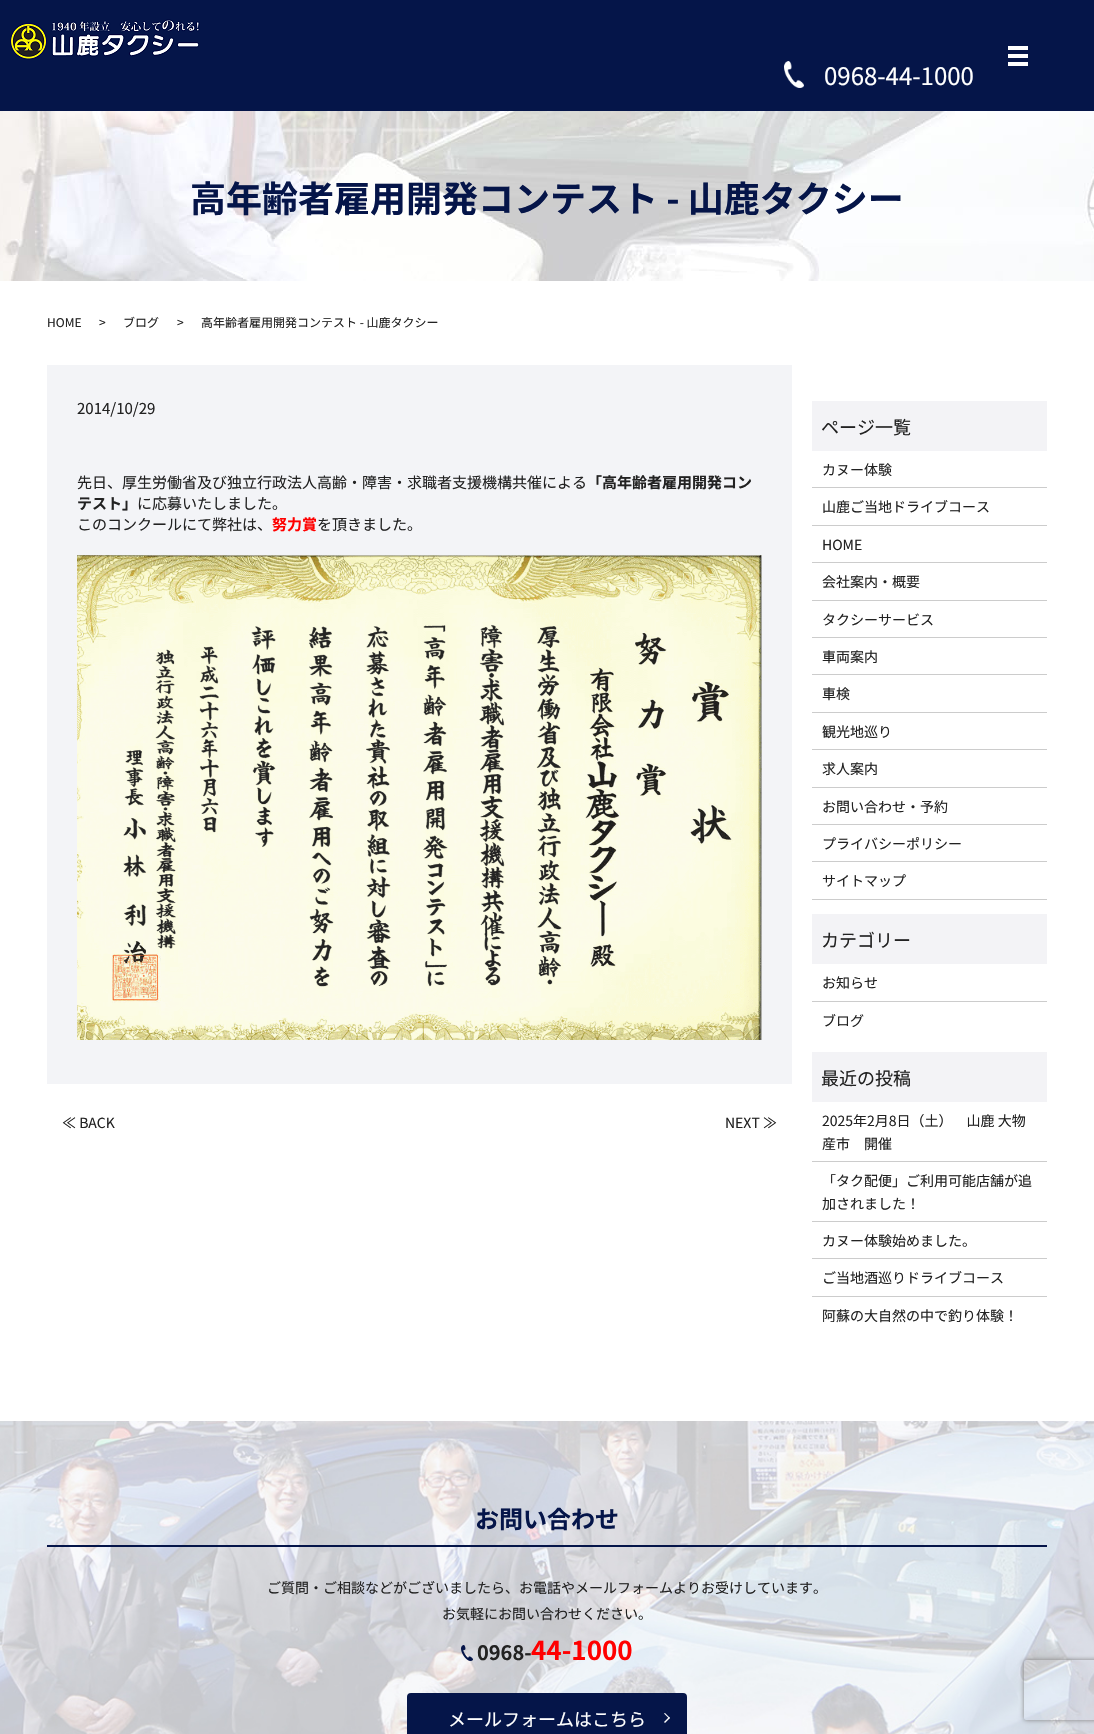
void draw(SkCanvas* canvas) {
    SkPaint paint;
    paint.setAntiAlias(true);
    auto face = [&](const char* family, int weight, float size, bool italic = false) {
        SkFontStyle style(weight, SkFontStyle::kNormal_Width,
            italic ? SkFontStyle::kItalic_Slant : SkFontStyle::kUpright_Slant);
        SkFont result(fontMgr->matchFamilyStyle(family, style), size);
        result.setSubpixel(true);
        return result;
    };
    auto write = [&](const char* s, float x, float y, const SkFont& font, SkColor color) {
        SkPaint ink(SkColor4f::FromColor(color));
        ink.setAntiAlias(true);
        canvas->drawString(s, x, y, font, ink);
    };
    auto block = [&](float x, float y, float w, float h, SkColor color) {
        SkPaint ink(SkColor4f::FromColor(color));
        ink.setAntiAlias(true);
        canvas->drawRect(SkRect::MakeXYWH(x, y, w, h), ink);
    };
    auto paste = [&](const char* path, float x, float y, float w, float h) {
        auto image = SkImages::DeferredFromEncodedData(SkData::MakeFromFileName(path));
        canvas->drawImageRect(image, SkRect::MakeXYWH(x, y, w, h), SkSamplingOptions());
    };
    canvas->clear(SK_ColorWHITE);
    block(0, 0, 1094, 111, SkColorSetRGB(5, 21, 73));
    paste("pic1.png", 10, 19, 190, 41);
    block(1008, 46, 20, 4, SK_ColorWHITE);
    block(1008, 54, 20, 4, SK_ColorWHITE);
    block(1008, 62, 20, 4, SK_ColorWHITE);
    paste("pic2.png", 784, 61, 20, 27);
    auto kFont1 = face("Noto Sans JP", 400, 24);
    write("0968-44-1000", 824, 85, kFont1, SK_ColorWHITE);
    paste("pic3.png", 0, 111, 1094, 170);
    auto kFont2 = face("Noto Sans JP", 700, 36);
    write("高年齢者雇用開発コンテスト - 山鹿タクシー", 190, 212, kFont2, SkColorSetRGB(5, 21, 73));
    auto kFont3 = face("Noto Sans JP", 400, 12);
    write("HOME", 47, 327, kFont3, SkColorSetRGB(34, 34, 34));
    write(">", 99, 327, kFont3, SkColorSetRGB(34, 34, 34));
    write("ブログ", 123, 327, kFont3, SkColorSetRGB(34, 34, 34));
    write(">", 177, 327, kFont3, SkColorSetRGB(34, 34, 34));
    write("高年齢者雇用開発コンテスト - 山鹿タクシー", 201, 327, kFont3, SkColorSetRGB(34, 34, 34));
    block(47, 365, 745, 719, SkColorSetRGB(243, 244, 247));
    auto kFont4 = face("Noto Sans JP", 400, 15);
    write("2014/10/29", 77, 414, kFont4, SkColorSetRGB(34, 34, 34));
    write("先日、厚生労働省及び独立行政法人高齢・障害・求職者支援機構共催による", 77, 488, kFont4, SkColorSetRGB(34, 34, 34));
    auto kFont5 = face("Noto Sans JP", 700, 15);
    write("「高年齢者雇用開発コン", 587, 488, kFont5, SkColorSetRGB(34, 34, 34));
    write("テスト」", 77, 509, kFont5, SkColorSetRGB(34, 34, 34));
    write("に応募いたしました。", 137, 509, kFont4, SkColorSetRGB(34, 34, 34));
    write("このコンクールにて弊社は、", 77, 530, kFont4, SkColorSetRGB(34, 34, 34));
    write("努力賞", 272, 530, kFont5, SkColorSetRGB(255, 0, 0));
    write("を頂きました。", 317, 530, kFont4, SkColorSetRGB(34, 34, 34));
    paste("pic4.png", 77, 555, 685, 485);
    auto kFont6 = face("Noto Sans JP", 400, 14);
    write("≪ BACK", 62, 1128, kFont6, SkColorSetRGB(34, 34, 34));
    write("NEXT ≫", 725, 1128, kFont6, SkColorSetRGB(34, 34, 34));
    block(812, 401, 235, 50, SkColorSetRGB(243, 243, 246));
    auto kFont7 = face("Noto Sans JP", 400, 18);
    write("ページ一覧", 821, 434, kFont7, SkColorSetRGB(34, 34, 34));
    block(812, 487, 235, 1, SkColorSetRGB(204, 204, 204));
    write("カヌー体験", 822, 475, kFont6, SkColorSetRGB(34, 34, 34));
    block(812, 525, 235, 1, SkColorSetRGB(204, 204, 204));
    write("山鹿ご当地ドライブコース", 822, 512, kFont6, SkColorSetRGB(34, 34, 34));
    block(812, 562, 235, 1, SkColorSetRGB(204, 204, 204));
    write("HOME", 822, 550, kFont6, SkColorSetRGB(34, 34, 34));
    block(812, 600, 235, 1, SkColorSetRGB(204, 204, 204));
    write("会社案内・概要", 822, 587, kFont6, SkColorSetRGB(34, 34, 34));
    block(812, 637, 235, 1, SkColorSetRGB(204, 204, 204));
    write("タクシーサービス", 822, 625, kFont6, SkColorSetRGB(34, 34, 34));
    block(812, 674, 235, 1, SkColorSetRGB(204, 204, 204));
    write("車両案内", 822, 662, kFont6, SkColorSetRGB(34, 34, 34));
    block(812, 712, 235, 1, SkColorSetRGB(204, 204, 204));
    write("車検", 822, 699, kFont6, SkColorSetRGB(34, 34, 34));
    block(812, 749, 235, 1, SkColorSetRGB(204, 204, 204));
    write("観光地巡り", 822, 737, kFont6, SkColorSetRGB(34, 34, 34));
    block(812, 787, 235, 1, SkColorSetRGB(204, 204, 204));
    write("求人案内", 822, 774, kFont6, SkColorSetRGB(34, 34, 34));
    block(812, 824, 235, 1, SkColorSetRGB(204, 204, 204));
    write("お問い合わせ・予約", 822, 812, kFont6, SkColorSetRGB(34, 34, 34));
    block(812, 861, 235, 1, SkColorSetRGB(204, 204, 204));
    write("プライバシーポリシー", 822, 849, kFont6, SkColorSetRGB(34, 34, 34));
    block(812, 899, 235, 1, SkColorSetRGB(204, 204, 204));
    write("サイトマップ", 822, 886, kFont6, SkColorSetRGB(34, 34, 34));
    block(812, 914, 235, 50, SkColorSetRGB(243, 243, 246));
    write("カテゴリー", 821, 947, kFont7, SkColorSetRGB(34, 34, 34));
    block(812, 1001, 235, 1, SkColorSetRGB(204, 204, 204));
    write("お知らせ", 822, 988, kFont6, SkColorSetRGB(34, 34, 34));
    write("ブログ", 822, 1026, kFont6, SkColorSetRGB(34, 34, 34));
    block(812, 1052, 235, 50, SkColorSetRGB(243, 243, 246));
    write("最近の投稿", 821, 1085, kFont7, SkColorSetRGB(34, 34, 34));
    block(812, 1161, 235, 1, SkColorSetRGB(204, 204, 204));
    write("2025年2月8日（土）　山鹿 大物", 822, 1126, kFont6, SkColorSetRGB(34, 34, 34));
    write("産市　開催", 822, 1149, kFont6, SkColorSetRGB(34, 34, 34));
    block(812, 1221, 235, 1, SkColorSetRGB(204, 204, 204));
    write("「タク配便」ご利用可能店舗が追", 822, 1186, kFont6, SkColorSetRGB(34, 34, 34));
    write("加されました！", 822, 1209, kFont6, SkColorSetRGB(34, 34, 34));
    block(812, 1258, 235, 1, SkColorSetRGB(204, 204, 204));
    write("カヌー体験始めました。", 822, 1246, kFont6, SkColorSetRGB(34, 34, 34));
    block(812, 1296, 235, 1, SkColorSetRGB(204, 204, 204));
    write("ご当地酒巡りドライブコース", 822, 1283, kFont6, SkColorSetRGB(34, 34, 34));
    write("阿蘇の大自然の中で釣り体験！", 822, 1321, kFont6, SkColorSetRGB(34, 34, 34));
    paste("pic5.png", 0, 1421, 1094, 313);
    block(47, 1545, 1000, 2, SkColorSetRGB(5, 21, 73));
    auto kFont8 = face("Noto Sans JP", 700, 24);
    write("お問い合わせ", 475, 1528, kFont8, SkColorSetRGB(5, 21, 73));
    write("ご質問・ご相談などがございましたら、お電話やメールフォームよりお受けしています。", 267, 1593, kFont6, SkColorSetRGB(34, 34, 34));
    write("お気軽にお問い合わせください。", 442, 1619, kFont6, SkColorSetRGB(34, 34, 34));
    paste("pic6.png", 461, 1645, 12, 16);
    auto kFont9 = face("Noto Sans JP", 700, 20);
    write("0968-", 477, 1660, kFont9, SkColorSetRGB(34, 34, 34));
    auto kFont10 = face("Noto Sans JP", 700, 26);
    write("44-1000", 531, 1660, kFont10, SkColorSetRGB(255, 0, 0));
    paint.setColor(SkColorSetRGB(5, 21, 73));
    canvas->drawRoundRect(SkRect::MakeXYWH(408, 1694, 278, 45), 3, 3, paint);
    paint.setStyle(SkPaint::kStroke_Style);
    paint.setStrokeWidth(2);
    canvas->drawRoundRect(SkRect::MakeXYWH(408, 1694, 278, 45), 3, 3, paint);
    write("メールフォームはこちら", 448, 1726, kFont7, SK_ColorWHITE);
    paint.setStyle(SkPaint::kFill_Style);
    paint.setColor(SK_ColorWHITE);
    canvas->drawPath(SkPathBuilder().moveTo(665, 1713).lineTo(670, 1718).lineTo(669, 1718.5f).lineTo(664, 1713.5f).close().detach(), paint);
    canvas->drawPath(SkPathBuilder().moveTo(669, 1717).lineTo(670, 1718).lineTo(665, 1723).lineTo(664, 1722).close().detach(), paint);
    canvas->save();
    canvas->clipPath(SkPathBuilder(SkPathFillType::kEvenOdd).moveTo(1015, 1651).lineTo(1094, 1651).lineTo(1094, 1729).lineTo(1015, 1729).close().moveTo(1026, 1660).lineTo(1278, 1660).cubicTo(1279, 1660, 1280, 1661, 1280, 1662).lineTo(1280, 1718).cubicTo(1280, 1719, 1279, 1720, 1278, 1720).lineTo(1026, 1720).cubicTo(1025, 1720, 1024, 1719, 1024, 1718).lineTo(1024, 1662).cubicTo(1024, 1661, 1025, 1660, 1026, 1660).close().detach(), true);
    paint.setColor(SkColorSetRGB(128, 128, 128));
    paint.setMaskFilter(SkMaskFilter::MakeBlur(kNormal_SkBlurStyle, 2.5f));
    canvas->drawRoundRect(SkRect::MakeXYWH(1024, 1660, 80, 60), 2, 2, paint);
    paint.setMaskFilter(nullptr);
    canvas->restore();
}
